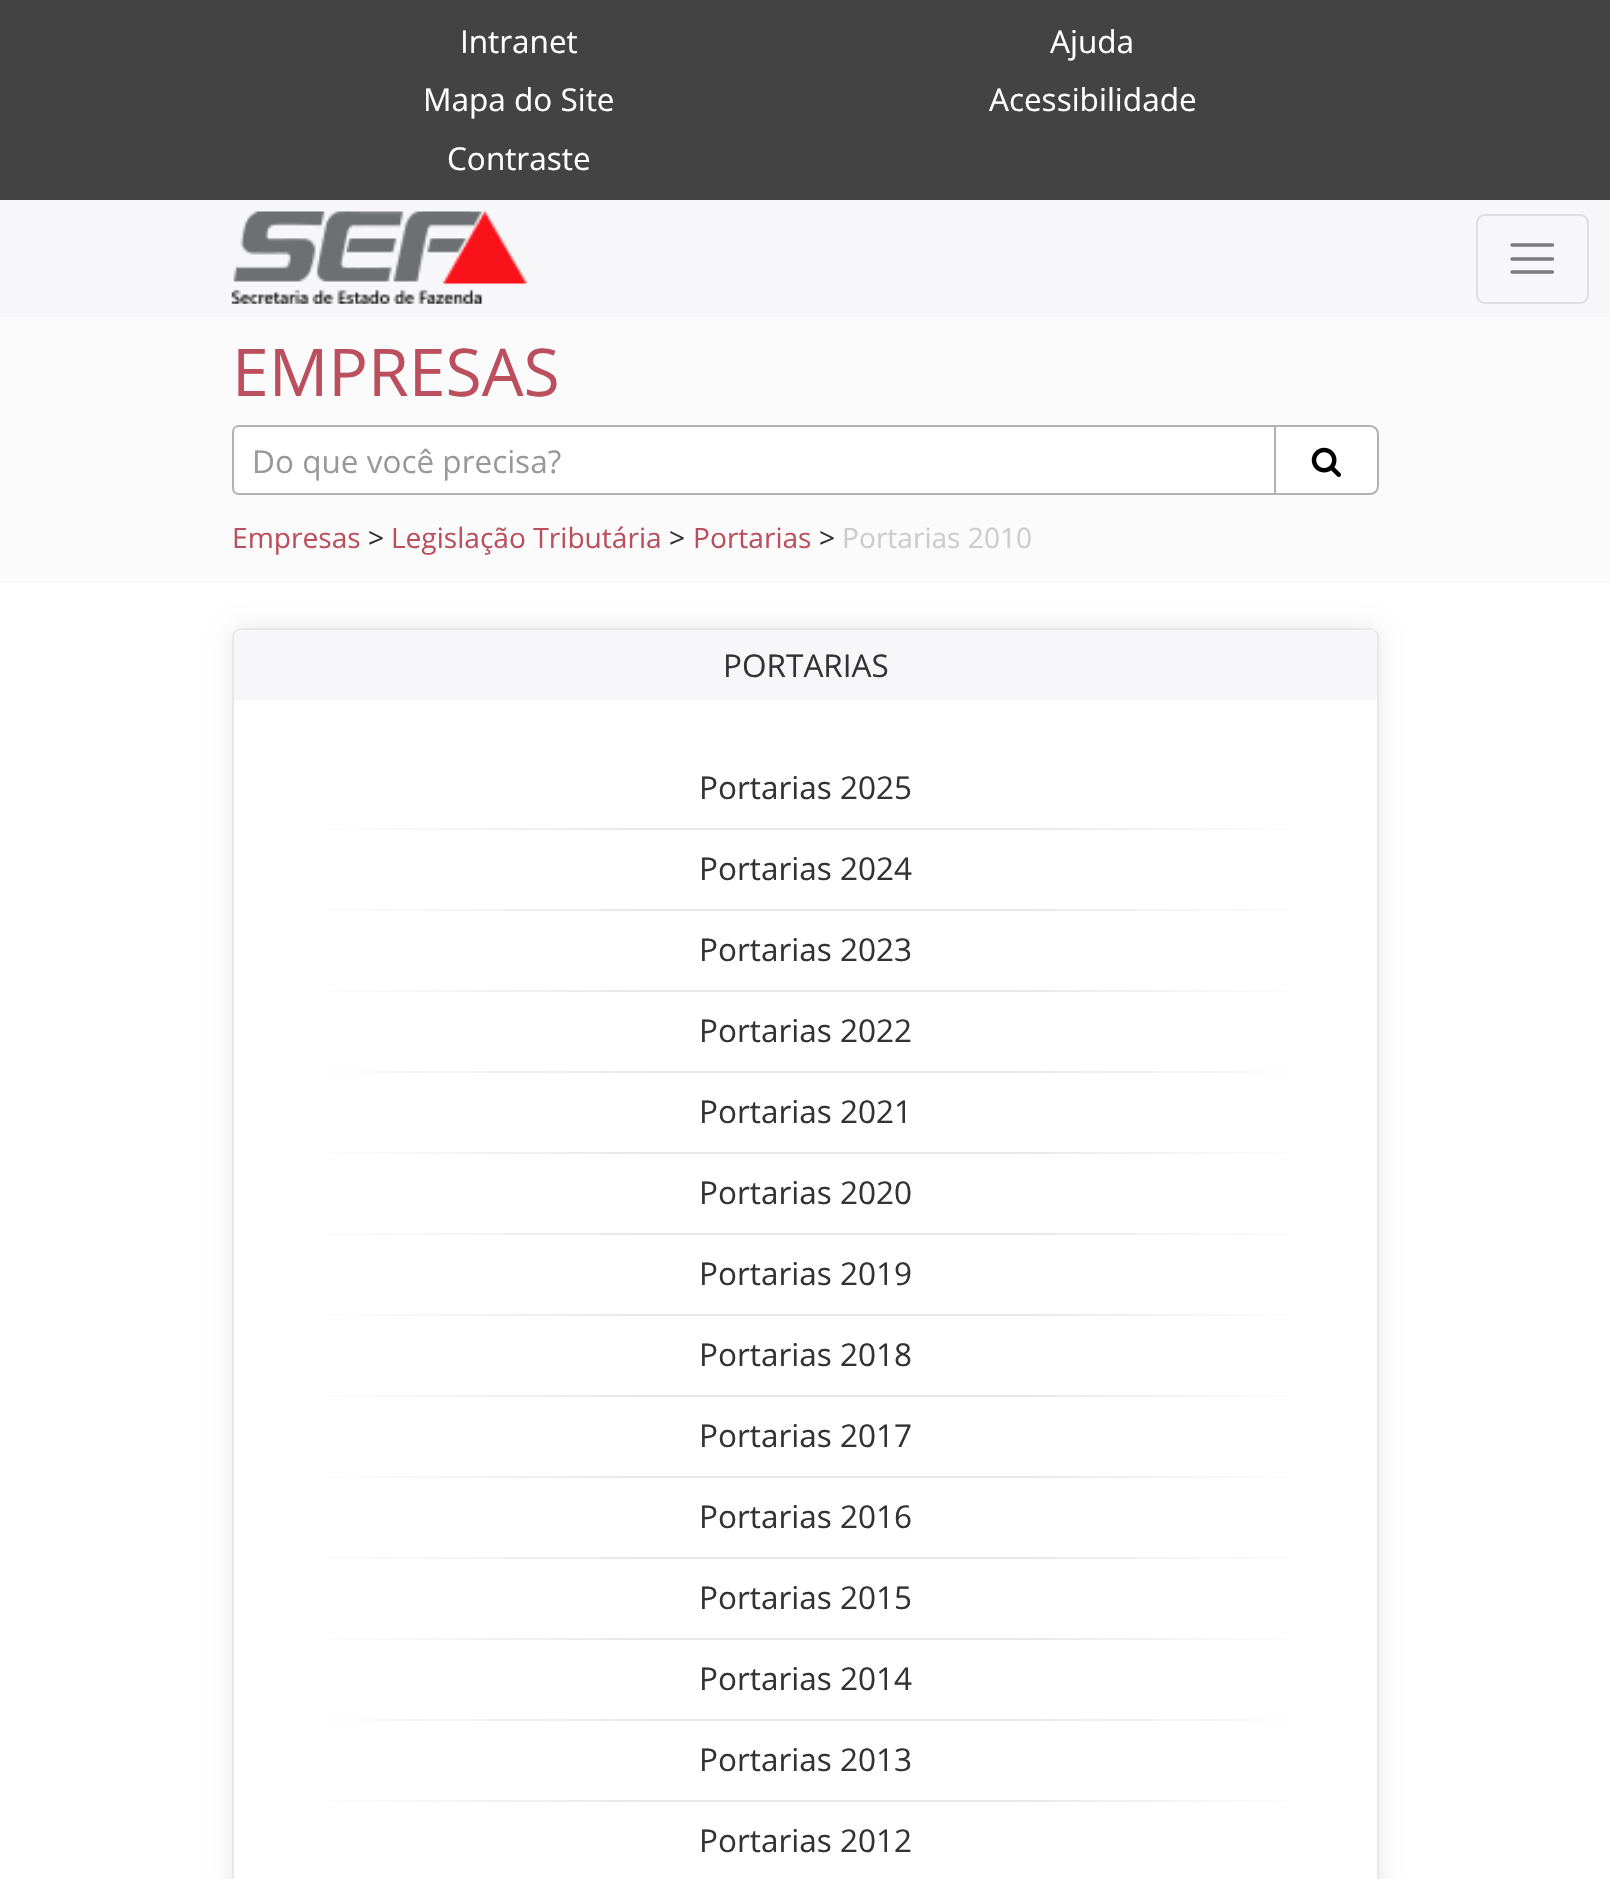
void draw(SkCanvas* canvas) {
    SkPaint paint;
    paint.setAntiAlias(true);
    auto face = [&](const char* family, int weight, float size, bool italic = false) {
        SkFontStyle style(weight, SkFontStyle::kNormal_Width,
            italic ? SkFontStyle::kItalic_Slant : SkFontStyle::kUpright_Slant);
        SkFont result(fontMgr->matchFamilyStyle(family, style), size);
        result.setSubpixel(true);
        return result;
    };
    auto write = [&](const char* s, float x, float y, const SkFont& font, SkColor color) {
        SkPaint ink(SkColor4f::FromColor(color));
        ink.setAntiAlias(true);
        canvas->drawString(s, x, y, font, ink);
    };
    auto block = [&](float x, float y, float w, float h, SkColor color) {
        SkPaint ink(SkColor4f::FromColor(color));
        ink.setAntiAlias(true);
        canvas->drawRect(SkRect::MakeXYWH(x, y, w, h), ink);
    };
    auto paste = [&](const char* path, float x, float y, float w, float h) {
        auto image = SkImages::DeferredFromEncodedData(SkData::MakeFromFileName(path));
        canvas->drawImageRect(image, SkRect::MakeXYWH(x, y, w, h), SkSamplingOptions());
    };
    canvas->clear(SK_ColorWHITE);
    block(0, 0, 1610, 200, SkColorSetRGB(67, 67, 67));
    auto kFont1 = face("Open Sans", 400, 31.5f);
    write("Intranet", 460, 53, kFont1, SK_ColorWHITE);
    write("Ajuda", 1050, 53, kFont1, SK_ColorWHITE);
    write("Mapa do Site", 423, 111, kFont1, SK_ColorWHITE);
    write("Acessibilidade", 989, 111, kFont1, SK_ColorWHITE);
    write("Contraste", 447, 170, kFont1, SK_ColorWHITE);
    block(0, 200, 1610, 117, SkColorSetRGB(247, 247, 249));
    paste("pic1.png", 231, 211, 296, 93);
    paint.setStyle(SkPaint::kStroke_Style);
    paint.setStrokeWidth(3.4f);
    paint.setStrokeCap(SkPaint::kRound_Cap);
    paint.setColor(SkColorSetRGB(124, 124, 125));
    canvas->drawPath(SkPathBuilder().moveTo(1512, 245).lineTo(1552.5f, 245).moveTo(1512, 259).lineTo(1552.5f, 259).moveTo(1512, 272).lineTo(1552.5f, 272).detach(), paint);
    paint.setStrokeWidth(2);
    paint.setStrokeCap(SkPaint::kButt_Cap);
    paint.setColor(SkColorSetRGB(222, 222, 224));
    canvas->drawRoundRect(SkRect::MakeXYWH(1477, 215, 111, 88), 8, 8, paint);
    block(0, 317, 1610, 266, SkColorSetRGB(251, 251, 251));
    auto kFont2 = face("Open Sans", 400, 66);
    write("EMPRESAS", 232, 396, kFont2, SkColorSetRGB(187, 79, 93));
    paint.setStyle(SkPaint::kFill_Style);
    paint.setColor(SK_ColorWHITE);
    canvas->drawPath(SkPathBuilder().moveTo(239, 428).lineTo(1274, 428).lineTo(1274, 493).lineTo(239, 493).cubicTo(236, 493, 234, 491, 234, 488).lineTo(234, 433).cubicTo(234, 430, 236, 428, 239, 428).close().detach(), paint);
    paint.setStyle(SkPaint::kStroke_Style);
    paint.setColor(SkColorSetRGB(177, 177, 177));
    canvas->drawPath(SkPathBuilder().moveTo(239, 426).lineTo(1275, 426).lineTo(1275, 494).lineTo(239, 494).cubicTo(235.5f, 494, 233, 491.5f, 233, 488).lineTo(233, 432).cubicTo(233, 428.5f, 235.5f, 426, 239, 426).close().detach(), paint);
    write("Do que você precisa?", 252, 473, kFont1, SkColorSetRGB(153, 153, 153));
    paint.setStyle(SkPaint::kFill_Style);
    paint.setColor(SK_ColorWHITE);
    canvas->drawPath(SkPathBuilder().moveTo(1275, 426).lineTo(1370, 426).cubicTo(1374.5f, 426, 1378, 429.5f, 1378, 434).lineTo(1378, 486).cubicTo(1378, 490.5f, 1374.5f, 494, 1370, 494).lineTo(1275, 494).close().detach(), paint);
    paint.setStyle(SkPaint::kStroke_Style);
    paint.setColor(SkColorSetRGB(177, 177, 177));
    canvas->drawPath(SkPathBuilder().moveTo(1275, 426).lineTo(1370, 426).cubicTo(1374.5f, 426, 1378, 429.5f, 1378, 434).lineTo(1378, 486).cubicTo(1378, 490.5f, 1374.5f, 494, 1370, 494).lineTo(1275, 494).close().detach(), paint);
    paste("pic2.png", 1311, 447, 30, 30);
    auto kFont3 = face("Open Sans", 400, 28.1f);
    write("Empresas", 232, 548, kFont3, SkColorSetRGB(187, 79, 93));
    write(">", 368, 548, kFont3, SkColorSetRGB(51, 51, 51));
    write("Legislação Tributária", 391, 548, kFont3, SkColorSetRGB(187, 79, 93));
    write(">", 669, 548, kFont3, SkColorSetRGB(51, 51, 51));
    write("Portarias", 693, 548, kFont3, SkColorSetRGB(187, 79, 93));
    write(">", 819, 548, kFont3, SkColorSetRGB(51, 51, 51));
    write("Portarias 2010", 842, 548, kFont3, SkColorSetRGB(204, 204, 204));
    canvas->save();
    canvas->clipPath(SkPathBuilder(SkPathFillType::kEvenOdd).moveTo(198, 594).lineTo(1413, 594).lineTo(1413, 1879).lineTo(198, 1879).close().moveTo(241, 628).lineTo(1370, 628).cubicTo(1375, 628, 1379, 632, 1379, 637).lineTo(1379, 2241).cubicTo(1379, 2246, 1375, 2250, 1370, 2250).lineTo(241, 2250).cubicTo(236, 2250, 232, 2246, 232, 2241).lineTo(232, 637).cubicTo(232, 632, 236, 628, 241, 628).close().detach(), true);
    paint.setStyle(SkPaint::kFill_Style);
    paint.setColor(SkColorSetRGB(232, 232, 232));
    paint.setMaskFilter(SkMaskFilter::MakeBlur(kNormal_SkBlurStyle, 11));
    canvas->drawRoundRect(SkRect::MakeXYWH(232, 628, 1147, 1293), 9, 9, paint);
    paint.setMaskFilter(nullptr);
    canvas->restore();
    paint.setStyle(SkPaint::kStroke_Style);
    canvas->drawRoundRect(SkRect::MakeXYWH(233, 629, 1145, 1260), 8, 8, paint);
    paint.setStyle(SkPaint::kFill_Style);
    paint.setColor(SkColorSetRGB(247, 247, 249));
    canvas->drawPath(SkPathBuilder().moveTo(243, 630).lineTo(1368, 630).cubicTo(1373, 630, 1377, 634, 1377, 639).lineTo(1377, 700).lineTo(234, 700).lineTo(234, 639).cubicTo(234, 634, 238, 630, 243, 630).close().detach(), paint);
    write("PORTARIAS", 723, 677, kFont1, SkColorSetRGB(51, 51, 51));
    write("Portarias 2025", 699, 799, kFont1, SkColorSetRGB(51, 51, 51));
    {
        const SkColor colors[] = {SK_ColorWHITE, SkColorSetRGB(232, 232, 232), SkColorSetRGB(232, 232, 232), SK_ColorWHITE};
        const float stops[] = {0, 0.35f, 0.7f, 1};
        const SkPoint ends[] = {{290, 829}, {1321, 829}};
        paint.setShader(SkGradientShader::MakeLinear(ends, colors, stops, 4, SkTileMode::kClamp));
        paint.setAlpha(255);
    }
    canvas->drawRect(SkRect::MakeXYWH(329, 828, 958, 2), paint);
    write("Portarias 2024", 699, 880, kFont1, SkColorSetRGB(51, 51, 51));
    {
        const SkColor colors[] = {SK_ColorWHITE, SkColorSetRGB(232, 232, 232), SkColorSetRGB(232, 232, 232), SK_ColorWHITE};
        const float stops[] = {0, 0.35f, 0.7f, 1};
        const SkPoint ends[] = {{290, 910}, {1321, 910}};
        paint.setShader(SkGradientShader::MakeLinear(ends, colors, stops, 4, SkTileMode::kClamp));
        paint.setAlpha(255);
    }
    canvas->drawRect(SkRect::MakeXYWH(329, 909, 958, 2), paint);
    write("Portarias 2023", 699, 961, kFont1, SkColorSetRGB(51, 51, 51));
    {
        const SkColor colors[] = {SK_ColorWHITE, SkColorSetRGB(232, 232, 232), SkColorSetRGB(232, 232, 232), SK_ColorWHITE};
        const float stops[] = {0, 0.35f, 0.7f, 1};
        const SkPoint ends[] = {{290, 991}, {1321, 991}};
        paint.setShader(SkGradientShader::MakeLinear(ends, colors, stops, 4, SkTileMode::kClamp));
        paint.setAlpha(255);
    }
    canvas->drawRect(SkRect::MakeXYWH(329, 990, 958, 2), paint);
    write("Portarias 2022", 699, 1042, kFont1, SkColorSetRGB(51, 51, 51));
    {
        const SkColor colors[] = {SK_ColorWHITE, SkColorSetRGB(232, 232, 232), SkColorSetRGB(232, 232, 232), SK_ColorWHITE};
        const float stops[] = {0, 0.35f, 0.7f, 1};
        const SkPoint ends[] = {{290, 1072}, {1321, 1072}};
        paint.setShader(SkGradientShader::MakeLinear(ends, colors, stops, 4, SkTileMode::kClamp));
        paint.setAlpha(255);
    }
    canvas->drawRect(SkRect::MakeXYWH(329, 1071, 958, 2), paint);
    write("Portarias 2021", 699, 1123, kFont1, SkColorSetRGB(51, 51, 51));
    {
        const SkColor colors[] = {SK_ColorWHITE, SkColorSetRGB(232, 232, 232), SkColorSetRGB(232, 232, 232), SK_ColorWHITE};
        const float stops[] = {0, 0.35f, 0.7f, 1};
        const SkPoint ends[] = {{290, 1153}, {1321, 1153}};
        paint.setShader(SkGradientShader::MakeLinear(ends, colors, stops, 4, SkTileMode::kClamp));
        paint.setAlpha(255);
    }
    canvas->drawRect(SkRect::MakeXYWH(329, 1152, 958, 2), paint);
    write("Portarias 2020", 699, 1204, kFont1, SkColorSetRGB(51, 51, 51));
    {
        const SkColor colors[] = {SK_ColorWHITE, SkColorSetRGB(232, 232, 232), SkColorSetRGB(232, 232, 232), SK_ColorWHITE};
        const float stops[] = {0, 0.35f, 0.7f, 1};
        const SkPoint ends[] = {{290, 1234}, {1321, 1234}};
        paint.setShader(SkGradientShader::MakeLinear(ends, colors, stops, 4, SkTileMode::kClamp));
        paint.setAlpha(255);
    }
    canvas->drawRect(SkRect::MakeXYWH(329, 1233, 958, 2), paint);
    write("Portarias 2019", 699, 1285, kFont1, SkColorSetRGB(51, 51, 51));
    {
        const SkColor colors[] = {SK_ColorWHITE, SkColorSetRGB(232, 232, 232), SkColorSetRGB(232, 232, 232), SK_ColorWHITE};
        const float stops[] = {0, 0.35f, 0.7f, 1};
        const SkPoint ends[] = {{290, 1315}, {1321, 1315}};
        paint.setShader(SkGradientShader::MakeLinear(ends, colors, stops, 4, SkTileMode::kClamp));
        paint.setAlpha(255);
    }
    canvas->drawRect(SkRect::MakeXYWH(329, 1314, 958, 2), paint);
    write("Portarias 2018", 699, 1366, kFont1, SkColorSetRGB(51, 51, 51));
    {
        const SkColor colors[] = {SK_ColorWHITE, SkColorSetRGB(232, 232, 232), SkColorSetRGB(232, 232, 232), SK_ColorWHITE};
        const float stops[] = {0, 0.35f, 0.7f, 1};
        const SkPoint ends[] = {{290, 1396}, {1321, 1396}};
        paint.setShader(SkGradientShader::MakeLinear(ends, colors, stops, 4, SkTileMode::kClamp));
        paint.setAlpha(255);
    }
    canvas->drawRect(SkRect::MakeXYWH(329, 1395, 958, 2), paint);
    write("Portarias 2017", 699, 1447, kFont1, SkColorSetRGB(51, 51, 51));
    {
        const SkColor colors[] = {SK_ColorWHITE, SkColorSetRGB(232, 232, 232), SkColorSetRGB(232, 232, 232), SK_ColorWHITE};
        const float stops[] = {0, 0.35f, 0.7f, 1};
        const SkPoint ends[] = {{290, 1477}, {1321, 1477}};
        paint.setShader(SkGradientShader::MakeLinear(ends, colors, stops, 4, SkTileMode::kClamp));
        paint.setAlpha(255);
    }
    canvas->drawRect(SkRect::MakeXYWH(329, 1476, 958, 2), paint);
    write("Portarias 2016", 699, 1528, kFont1, SkColorSetRGB(51, 51, 51));
    {
        const SkColor colors[] = {SK_ColorWHITE, SkColorSetRGB(232, 232, 232), SkColorSetRGB(232, 232, 232), SK_ColorWHITE};
        const float stops[] = {0, 0.35f, 0.7f, 1};
        const SkPoint ends[] = {{290, 1558}, {1321, 1558}};
        paint.setShader(SkGradientShader::MakeLinear(ends, colors, stops, 4, SkTileMode::kClamp));
        paint.setAlpha(255);
    }
    canvas->drawRect(SkRect::MakeXYWH(329, 1557, 958, 2), paint);
    write("Portarias 2015", 699, 1609, kFont1, SkColorSetRGB(51, 51, 51));
    {
        const SkColor colors[] = {SK_ColorWHITE, SkColorSetRGB(232, 232, 232), SkColorSetRGB(232, 232, 232), SK_ColorWHITE};
        const float stops[] = {0, 0.35f, 0.7f, 1};
        const SkPoint ends[] = {{290, 1639}, {1321, 1639}};
        paint.setShader(SkGradientShader::MakeLinear(ends, colors, stops, 4, SkTileMode::kClamp));
        paint.setAlpha(255);
    }
    canvas->drawRect(SkRect::MakeXYWH(329, 1638, 958, 2), paint);
    write("Portarias 2014", 699, 1690, kFont1, SkColorSetRGB(51, 51, 51));
    {
        const SkColor colors[] = {SK_ColorWHITE, SkColorSetRGB(232, 232, 232), SkColorSetRGB(232, 232, 232), SK_ColorWHITE};
        const float stops[] = {0, 0.35f, 0.7f, 1};
        const SkPoint ends[] = {{290, 1720}, {1321, 1720}};
        paint.setShader(SkGradientShader::MakeLinear(ends, colors, stops, 4, SkTileMode::kClamp));
        paint.setAlpha(255);
    }
    canvas->drawRect(SkRect::MakeXYWH(329, 1719, 958, 2), paint);
    write("Portarias 2013", 699, 1771, kFont1, SkColorSetRGB(51, 51, 51));
    {
        const SkColor colors[] = {SK_ColorWHITE, SkColorSetRGB(232, 232, 232), SkColorSetRGB(232, 232, 232), SK_ColorWHITE};
        const float stops[] = {0, 0.35f, 0.7f, 1};
        const SkPoint ends[] = {{290, 1801}, {1321, 1801}};
        paint.setShader(SkGradientShader::MakeLinear(ends, colors, stops, 4, SkTileMode::kClamp));
        paint.setAlpha(255);
    }
    canvas->drawRect(SkRect::MakeXYWH(329, 1800, 958, 2), paint);
    write("Portarias 2012", 699, 1852, kFont1, SkColorSetRGB(51, 51, 51));
}
